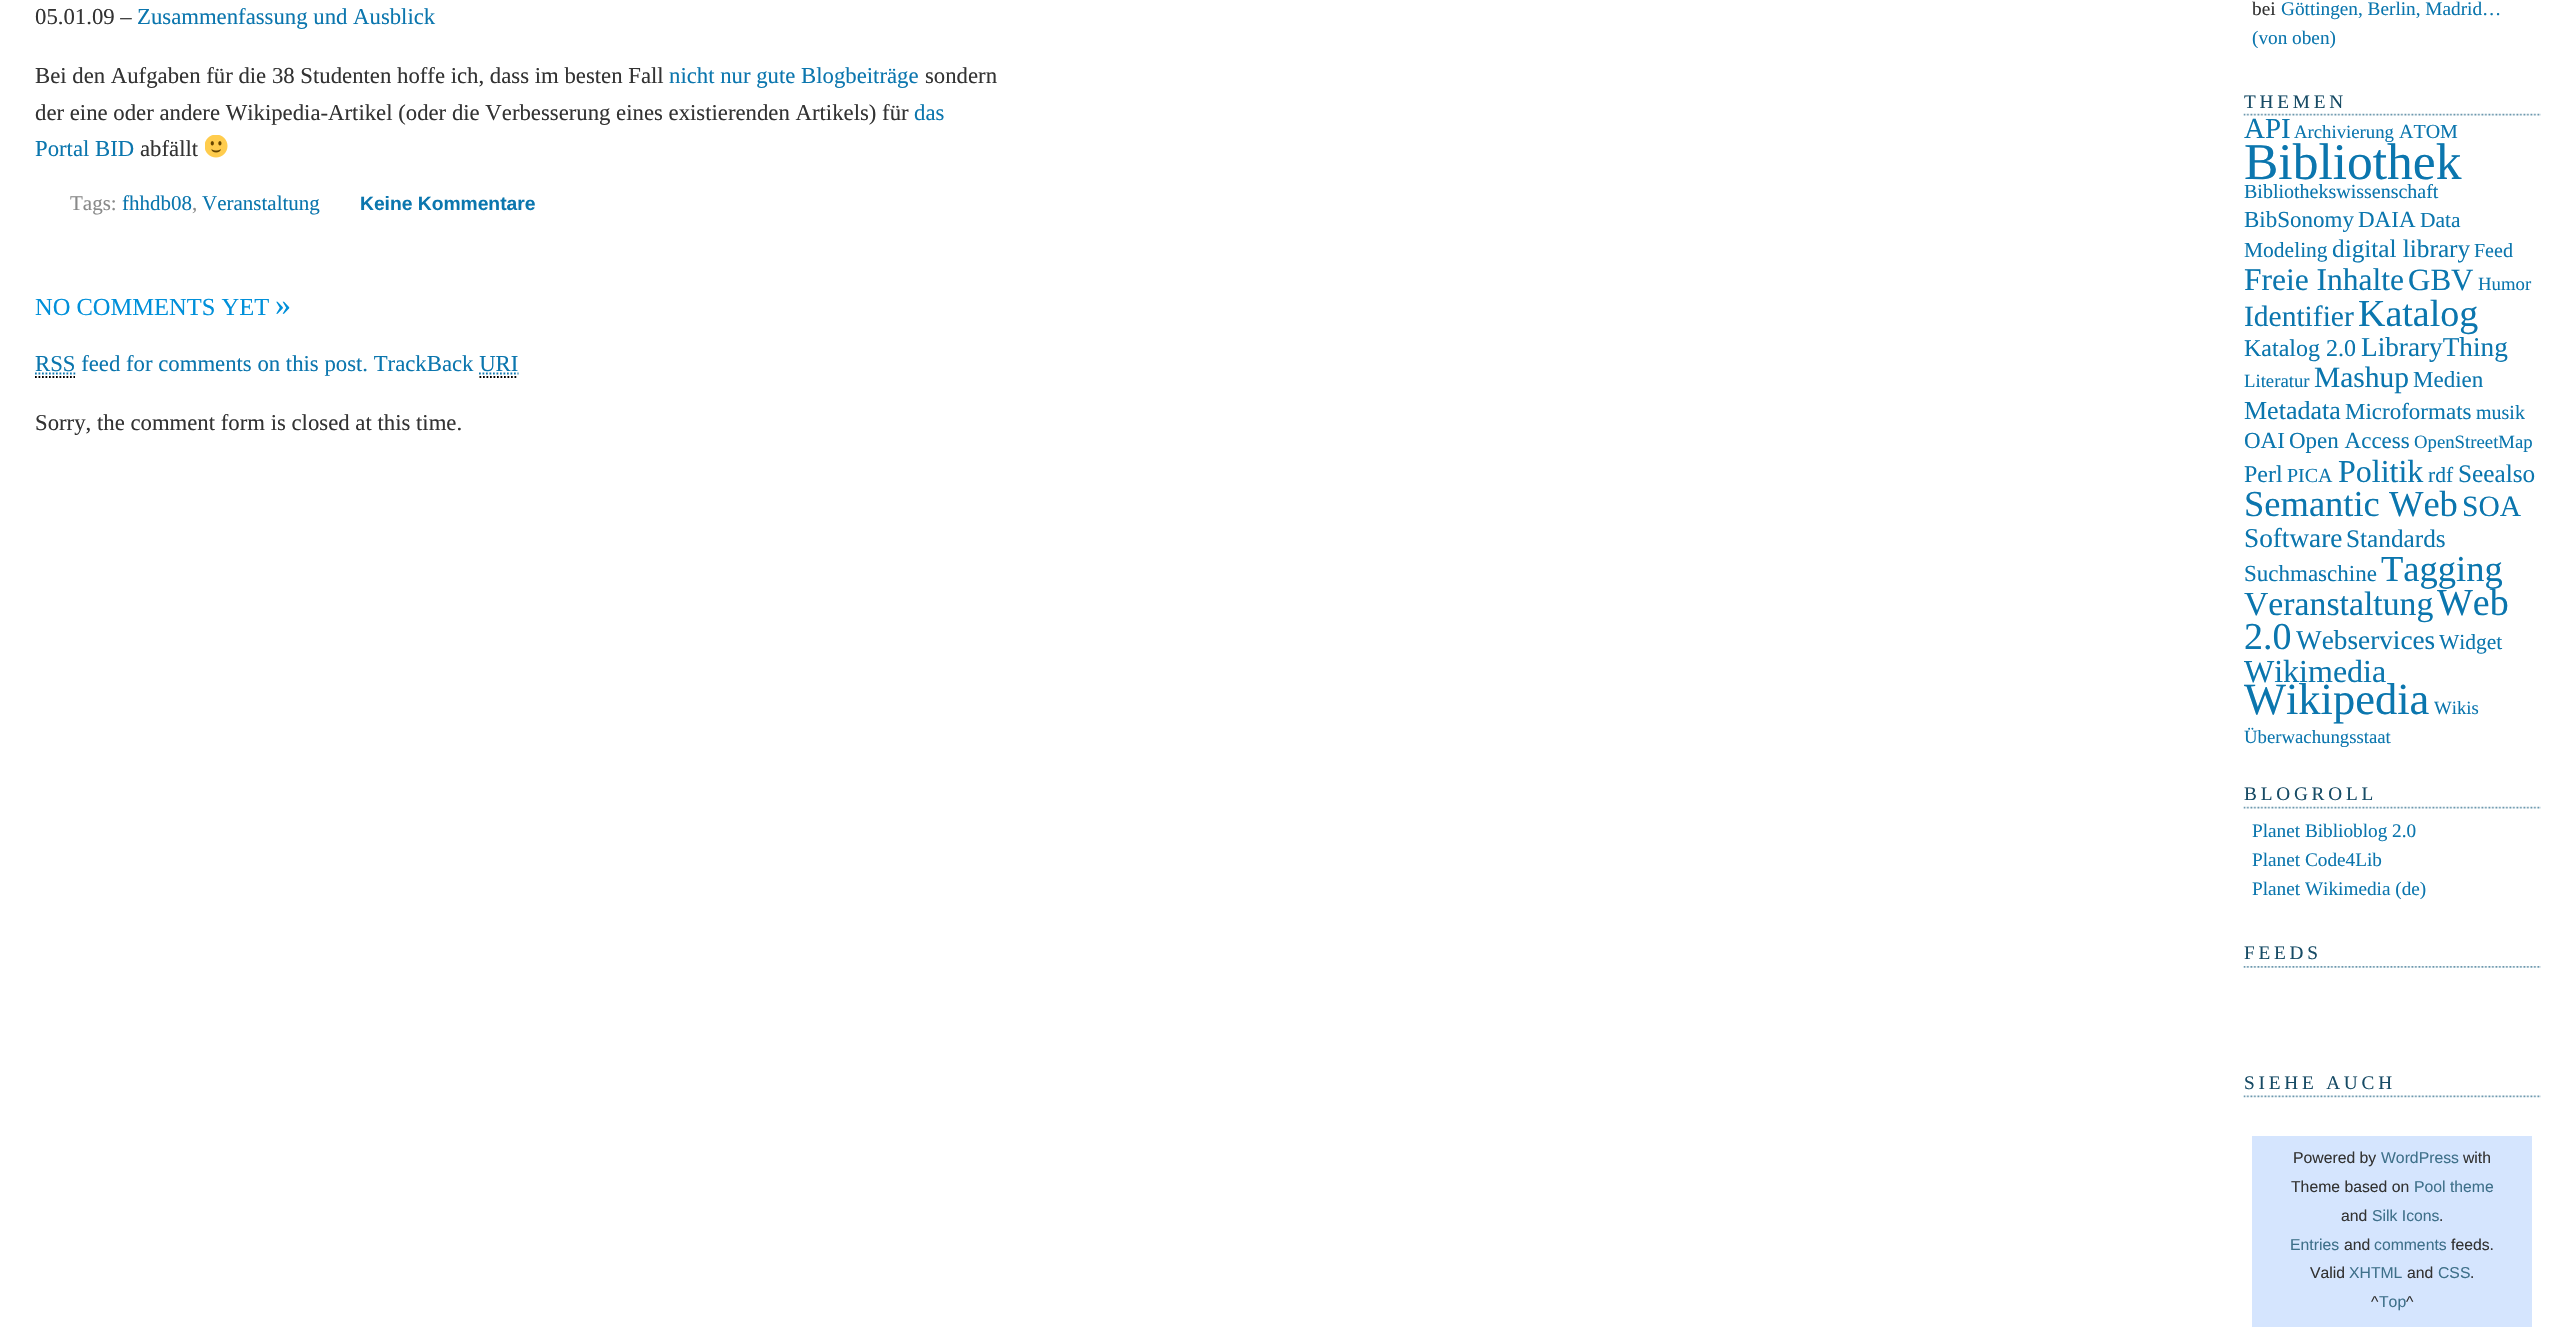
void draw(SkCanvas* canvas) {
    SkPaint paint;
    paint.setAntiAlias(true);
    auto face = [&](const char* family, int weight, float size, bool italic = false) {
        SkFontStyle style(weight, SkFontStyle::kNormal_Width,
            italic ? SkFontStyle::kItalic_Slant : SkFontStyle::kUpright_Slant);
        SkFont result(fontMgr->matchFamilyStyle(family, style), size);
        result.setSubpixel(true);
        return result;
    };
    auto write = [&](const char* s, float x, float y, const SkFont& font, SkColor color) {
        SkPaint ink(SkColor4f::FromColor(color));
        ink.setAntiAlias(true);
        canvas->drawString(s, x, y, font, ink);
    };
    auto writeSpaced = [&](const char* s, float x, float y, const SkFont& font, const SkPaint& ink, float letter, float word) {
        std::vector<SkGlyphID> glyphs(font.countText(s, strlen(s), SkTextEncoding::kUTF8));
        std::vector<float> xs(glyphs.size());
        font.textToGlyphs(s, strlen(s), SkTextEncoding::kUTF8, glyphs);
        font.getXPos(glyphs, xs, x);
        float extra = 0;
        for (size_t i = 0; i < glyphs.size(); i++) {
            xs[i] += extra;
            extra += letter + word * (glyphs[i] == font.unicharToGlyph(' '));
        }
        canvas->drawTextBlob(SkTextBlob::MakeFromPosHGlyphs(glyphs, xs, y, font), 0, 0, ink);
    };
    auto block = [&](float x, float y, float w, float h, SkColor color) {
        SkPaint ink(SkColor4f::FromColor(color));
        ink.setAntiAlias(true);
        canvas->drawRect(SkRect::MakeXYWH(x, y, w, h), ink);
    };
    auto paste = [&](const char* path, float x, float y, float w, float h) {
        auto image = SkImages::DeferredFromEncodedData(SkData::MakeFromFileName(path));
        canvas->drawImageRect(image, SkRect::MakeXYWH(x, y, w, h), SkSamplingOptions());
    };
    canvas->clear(SK_ColorWHITE);
    auto kFont1 = face("Liberation Serif", 400, 22.75f);
    write("05.01.09 –", 35, 24, kFont1, SkColorSetRGB(51, 51, 51));
    write("Zusammenfassung und Ausblick", 137, 24, kFont1, SkColorSetRGB(11, 118, 174));
    write("Bei den Aufgaben für die 38 Studenten hoffe ich, dass im besten Fall", 35, 83, kFont1, SkColorSetRGB(51, 51, 51));
    write("nicht nur gute Blogbeiträge", 669, 83, kFont1, SkColorSetRGB(11, 118, 174));
    write("sondern", 925, 83, kFont1, SkColorSetRGB(51, 51, 51));
    write("der eine oder andere Wikipedia-Artikel (oder die Verbesserung eines existierenden Artikels) für", 35, 120, kFont1, SkColorSetRGB(51, 51, 51));
    write("das", 914, 120, kFont1, SkColorSetRGB(11, 118, 174));
    write("Portal BID", 35, 156, kFont1, SkColorSetRGB(11, 118, 174));
    write("abfällt", 140, 156, kFont1, SkColorSetRGB(51, 51, 51));
    paste("pic1.png", 205, 135, 23, 23);
    auto kFont2 = face("Liberation Serif", 400, 21);
    write("Tags:", 70, 210, kFont2, SkColorSetRGB(137, 138, 138));
    write("fhhdb08", 122, 210, kFont2, SkColorSetRGB(11, 118, 174));
    write(",", 192, 210, kFont2, SkColorSetRGB(137, 138, 138));
    write("Veranstaltung", 202, 210, kFont2, SkColorSetRGB(11, 118, 174));
    auto kFont3 = face("Liberation Sans", 700, 19.25f);
    write("Keine Kommentare", 360, 210, kFont3, SkColorSetRGB(11, 118, 174));
    auto kFont4 = face("Liberation Serif", 400, 24.5f);
    write("NO COMMENTS YET", 35, 315, kFont4, SkColorSetRGB(0, 144, 218));
    auto kFont5 = face("Liberation Serif", 400, 32);
    write("»", 275, 315, kFont5, SkColorSetRGB(0, 144, 218));
    paint.setStyle(SkPaint::kStroke_Style);
    paint.setStrokeWidth(1.8f);
    paint.setColor(SkColorSetRGB(11, 118, 174));
    paint.setPathEffect(SkDashPathEffect::Make({{1.75f, 1.75f}}, 0));
    canvas->drawPath(SkPathBuilder().moveTo(35, 373.5f).lineTo(75.5f, 373.5f).detach(), paint);
    paint.setPathEffect(nullptr);
    write("RSS feed for comments on this post. TrackBack URI", 35, 371, kFont1, SkColorSetRGB(11, 118, 174));
    paint.setColor(SK_ColorBLACK);
    paint.setPathEffect(SkDashPathEffect::Make({{1.75f, 1.75f}}, 0));
    canvas->drawPath(SkPathBuilder().moveTo(35, 377).lineTo(75, 377).detach(), paint);
    paint.setPathEffect(nullptr);
    paint.setColor(SkColorSetRGB(11, 118, 174));
    paint.setPathEffect(SkDashPathEffect::Make({{1.75f, 1.75f}}, 0));
    canvas->drawPath(SkPathBuilder().moveTo(479, 373.5f).lineTo(518.5f, 373.5f).detach(), paint);
    paint.setPathEffect(nullptr);
    paint.setColor(SK_ColorBLACK);
    paint.setPathEffect(SkDashPathEffect::Make({{1.75f, 1.75f}}, 0));
    canvas->drawPath(SkPathBuilder().moveTo(479.5f, 377).lineTo(518, 377).detach(), paint);
    paint.setPathEffect(nullptr);
    write("Sorry, the comment form is closed at this time.", 35, 430, kFont1, SkColorSetRGB(51, 51, 51));
    auto kFont6 = face("Liberation Serif", 400, 19.25f);
    write("bei", 2252, 15, kFont6, SkColorSetRGB(51, 51, 51));
    write("Göttingen, Berlin, Madrid…", 2281, 15, kFont6, SkColorSetRGB(11, 118, 174));
    write("(von oben)", 2252, 44, kFont6, SkColorSetRGB(11, 118, 174));
    paste("pic2.png", 2243, 113, 298, 3);
    paint.setStyle(SkPaint::kFill_Style);
    paint.setColor(SkColorSetRGB(23, 75, 101));
    writeSpaced("THEMEN", 2244, 108, kFont6, paint, 3.8f, 0);
    auto kFont7 = face("Liberation Serif", 400, 29);
    write("API", 2244, 138, kFont7, SkColorSetRGB(11, 118, 174));
    auto kFont8 = face("Liberation Serif", 400, 18.75f);
    write("Archivierung", 2294, 138, kFont8, SkColorSetRGB(11, 118, 174));
    auto kFont9 = face("Liberation Serif", 400, 20);
    write("ATOM", 2399, 138, kFont9, SkColorSetRGB(11, 118, 174));
    auto kFont10 = face("Liberation Serif", 400, 51.5f);
    write("Bibliothek", 2244, 179, kFont10, SkColorSetRGB(11, 118, 174));
    write("Bibliothekswissenschaft", 2244, 198, kFont9, SkColorSetRGB(11, 118, 174));
    auto kFont11 = face("Liberation Serif", 400, 23);
    write("BibSonomy", 2244, 227, kFont11, SkColorSetRGB(11, 118, 174));
    write("DAIA", 2358, 227, kFont11, SkColorSetRGB(11, 118, 174));
    auto kFont12 = face("Liberation Serif", 400, 21.5f);
    write("Data", 2420, 227, kFont12, SkColorSetRGB(11, 118, 174));
    write("Modeling", 2244, 257, kFont12, SkColorSetRGB(11, 118, 174));
    auto kFont13 = face("Liberation Serif", 400, 25.25f);
    write("digital library", 2332, 257, kFont13, SkColorSetRGB(11, 118, 174));
    write("Feed", 2474, 257, kFont9, SkColorSetRGB(11, 118, 174));
    auto kFont14 = face("Liberation Serif", 400, 31.5f);
    write("Freie Inhalte", 2244, 290, kFont14, SkColorSetRGB(11, 118, 174));
    auto kFont15 = face("Liberation Serif", 400, 31);
    write("GBV", 2408, 290, kFont15, SkColorSetRGB(11, 118, 174));
    write("Humor", 2478, 290, kFont8, SkColorSetRGB(11, 118, 174));
    auto kFont16 = face("Liberation Serif", 400, 29.5f);
    write("Identifier", 2244, 326, kFont16, SkColorSetRGB(11, 118, 174));
    auto kFont17 = face("Liberation Serif", 400, 38);
    write("Katalog", 2358, 326, kFont17, SkColorSetRGB(11, 118, 174));
    auto kFont18 = face("Liberation Serif", 400, 24);
    write("Katalog 2.0", 2244, 356, kFont18, SkColorSetRGB(11, 118, 174));
    auto kFont19 = face("Liberation Serif", 400, 27.25f);
    write("LibraryThing", 2361, 356, kFont19, SkColorSetRGB(11, 118, 174));
    write("Literatur", 2244, 387, kFont8, SkColorSetRGB(11, 118, 174));
    write("Mashup", 2314, 387, kFont16, SkColorSetRGB(11, 118, 174));
    write("Medien", 2413, 387, kFont11, SkColorSetRGB(11, 118, 174));
    auto kFont20 = face("Liberation Serif", 400, 26);
    write("Metadata", 2244, 419, kFont20, SkColorSetRGB(11, 118, 174));
    write("Microformats", 2345, 419, kFont11, SkColorSetRGB(11, 118, 174));
    write("musik", 2476, 419, kFont9, SkColorSetRGB(11, 118, 174));
    write("OAI", 2244, 448, kFont11, SkColorSetRGB(11, 118, 174));
    write("Open Access", 2289, 448, kFont11, SkColorSetRGB(11, 118, 174));
    write("OpenStreetMap", 2414, 448, kFont8, SkColorSetRGB(11, 118, 174));
    write("Perl", 2244, 482, kFont18, SkColorSetRGB(11, 118, 174));
    write("PICA", 2287, 482, kFont9, SkColorSetRGB(11, 118, 174));
    write("Politik", 2338, 482, kFont5, SkColorSetRGB(11, 118, 174));
    write("rdf", 2428, 482, kFont12, SkColorSetRGB(11, 118, 174));
    write("Seealso", 2458, 482, kFont13, SkColorSetRGB(11, 118, 174));
    auto kFont21 = face("Liberation Serif", 400, 36.5f);
    write("Semantic Web", 2244, 516, kFont21, SkColorSetRGB(11, 118, 174));
    write("SOA", 2462, 516, kFont16, SkColorSetRGB(11, 118, 174));
    write("Software", 2244, 547, kFont19, SkColorSetRGB(11, 118, 174));
    write("Standards", 2346, 547, kFont13, SkColorSetRGB(11, 118, 174));
    write("Suchmaschine", 2244, 581, kFont11, SkColorSetRGB(11, 118, 174));
    write("Tagging", 2381, 581, kFont21, SkColorSetRGB(11, 118, 174));
    auto kFont22 = face("Liberation Serif", 400, 33.75f);
    write("Veranstaltung", 2244, 615, kFont22, SkColorSetRGB(11, 118, 174));
    write("Web", 2437, 615, kFont17, SkColorSetRGB(11, 118, 174));
    write("2.0", 2244, 649, kFont17, SkColorSetRGB(11, 118, 174));
    write("Webservices", 2296, 649, kFont19, SkColorSetRGB(11, 118, 174));
    write("Widget", 2439, 649, kFont12, SkColorSetRGB(11, 118, 174));
    write("Wikimedia", 2244, 682, kFont5, SkColorSetRGB(11, 118, 174));
    auto kFont23 = face("Liberation Serif", 400, 44.5f);
    write("Wikipedia", 2244, 714, kFont23, SkColorSetRGB(11, 118, 174));
    write("Wikis", 2434, 714, kFont8, SkColorSetRGB(11, 118, 174));
    write("Überwachungsstaat", 2244, 743, kFont8, SkColorSetRGB(11, 118, 174));
    paste("pic2.png", 2243, 806, 298, 3);
    writeSpaced("BLOGROLL", 2244, 800, kFont6, paint, 3.8f, 0);
    write("Planet Biblioblog 2.0", 2252, 837, kFont6, SkColorSetRGB(11, 118, 174));
    write("Planet Code4Lib", 2252, 866, kFont6, SkColorSetRGB(11, 118, 174));
    write("Planet Wikimedia (de)", 2252, 895, kFont6, SkColorSetRGB(11, 118, 174));
    paste("pic3.png", 2243, 966, 298, 2);
    writeSpaced("FEEDS", 2244, 959, kFont6, paint, 3.8f, 0);
    paste("pic4.png", 2243, 1095, 298, 3);
    writeSpaced("SIEHE AUCH", 2244, 1089, kFont6, paint, 3.8f, 0);
    block(2252, 1136, 280, 191, SkColorSetRGB(213, 229, 254));
    auto kFont24 = face("Liberation Sans", 400, 15.75f);
    write("Powered by", 2293, 1163, kFont24, SkColorSetRGB(51, 51, 51));
    write("WordPress", 2381, 1163, kFont24, SkColorSetRGB(62, 112, 138));
    write("with", 2463, 1163, kFont24, SkColorSetRGB(51, 51, 51));
    write("Theme based on", 2291, 1192, kFont24, SkColorSetRGB(51, 51, 51));
    write("Pool theme", 2414, 1192, kFont24, SkColorSetRGB(62, 112, 138));
    write("and", 2341, 1221, kFont24, SkColorSetRGB(51, 51, 51));
    write("Silk Icons", 2372, 1221, kFont24, SkColorSetRGB(62, 112, 138));
    write(".", 2439, 1221, kFont24, SkColorSetRGB(51, 51, 51));
    write("Entries", 2290, 1250, kFont24, SkColorSetRGB(62, 112, 138));
    write("and", 2344, 1250, kFont24, SkColorSetRGB(51, 51, 51));
    write("comments", 2374, 1250, kFont24, SkColorSetRGB(62, 112, 138));
    write("feeds.", 2451, 1250, kFont24, SkColorSetRGB(51, 51, 51));
    write("Valid", 2310, 1278, kFont24, SkColorSetRGB(51, 51, 51));
    write("XHTML", 2349, 1278, kFont24, SkColorSetRGB(62, 112, 138));
    write("and", 2407, 1278, kFont24, SkColorSetRGB(51, 51, 51));
    write("CSS", 2438, 1278, kFont24, SkColorSetRGB(62, 112, 138));
    write(".", 2470, 1278, kFont24, SkColorSetRGB(51, 51, 51));
    write("^", 2371, 1307, kFont24, SkColorSetRGB(51, 51, 51));
    write("Top", 2379, 1307, kFont24, SkColorSetRGB(62, 112, 138));
    write("^", 2406, 1307, kFont24, SkColorSetRGB(51, 51, 51));
}
